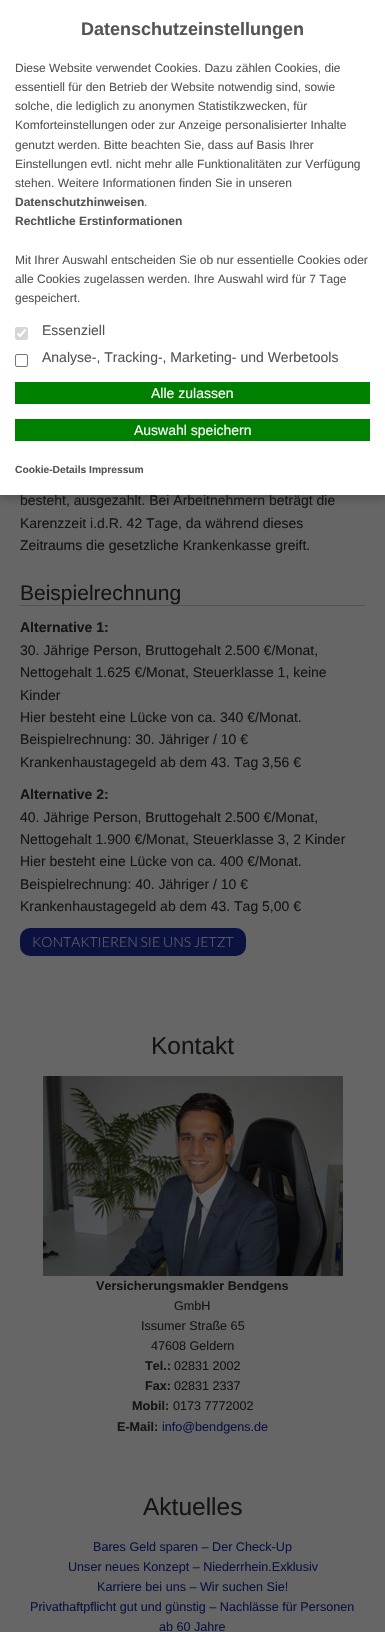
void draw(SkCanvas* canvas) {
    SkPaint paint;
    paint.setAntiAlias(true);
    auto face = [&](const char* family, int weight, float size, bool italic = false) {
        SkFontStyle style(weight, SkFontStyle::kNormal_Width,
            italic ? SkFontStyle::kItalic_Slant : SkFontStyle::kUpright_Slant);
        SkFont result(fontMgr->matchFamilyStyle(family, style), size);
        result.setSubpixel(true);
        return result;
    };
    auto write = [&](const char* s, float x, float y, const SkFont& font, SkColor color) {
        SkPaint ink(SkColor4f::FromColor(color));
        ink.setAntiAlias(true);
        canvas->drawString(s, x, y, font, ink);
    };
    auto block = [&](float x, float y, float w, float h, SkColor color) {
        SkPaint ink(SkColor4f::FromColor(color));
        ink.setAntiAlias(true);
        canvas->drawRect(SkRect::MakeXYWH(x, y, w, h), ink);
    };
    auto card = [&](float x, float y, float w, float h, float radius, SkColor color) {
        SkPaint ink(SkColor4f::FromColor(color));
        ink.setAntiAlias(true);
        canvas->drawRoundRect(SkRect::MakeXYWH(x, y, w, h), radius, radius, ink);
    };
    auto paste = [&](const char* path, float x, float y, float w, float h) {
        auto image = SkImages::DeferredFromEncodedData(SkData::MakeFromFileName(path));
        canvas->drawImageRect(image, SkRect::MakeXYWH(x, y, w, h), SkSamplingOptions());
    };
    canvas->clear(SkColorSetRGB(102, 102, 102));
    paint.setColor(SkColorSetARGB(51, 0, 0, 0));
    paint.setMaskFilter(SkMaskFilter::MakeBlur(kNormal_SkBlurStyle, 4));
    canvas->drawRect(SkRect::MakeXYWH(0, 4, 385, 495), paint);
    paint.setMaskFilter(nullptr);
    auto kFont1 = face("Liberation Sans", 400, 14);
    write("besteht, ausgezahlt. Bei Arbeitnehmern beträgt die", 20, 505, kFont1, SkColorSetRGB(20, 20, 20));
    block(0, 0, 385, 495, SK_ColorWHITE);
    auto kFont2 = face("Liberation Sans", 700, 18);
    write("Datenschutzeinstellungen", 81, 35, kFont2, SkColorSetRGB(85, 85, 85));
    auto kFont3 = face("Liberation Sans", 400, 12);
    write("Diese Website verwendet Cookies. Dazu zählen Cookies, die", 15, 72, kFont3, SkColorSetRGB(85, 85, 85));
    write("essentiell für den Betrieb der Website notwendig sind, sowie", 15, 91, kFont3, SkColorSetRGB(85, 85, 85));
    write("solche, die lediglich zu anonymen Statistikzwecken, für", 15, 110, kFont3, SkColorSetRGB(85, 85, 85));
    write("Komforteinstellungen oder zur Anzeige personalisierter Inhalte", 15, 129, kFont3, SkColorSetRGB(85, 85, 85));
    write("genutzt werden. Bitte beachten Sie, dass auf Basis Ihrer", 15, 149, kFont3, SkColorSetRGB(85, 85, 85));
    write("Einstellungen evtl. nicht mehr alle Funktionalitäten zur Verfügung", 15, 168, kFont3, SkColorSetRGB(85, 85, 85));
    write("stehen. Weitere Informationen finden Sie in unseren", 15, 187, kFont3, SkColorSetRGB(85, 85, 85));
    auto kFont4 = face("Liberation Sans", 700, 12);
    write("Datenschutzhinweisen", 15, 206, kFont4, SkColorSetRGB(85, 85, 85));
    write(".", 144, 206, kFont3, SkColorSetRGB(85, 85, 85));
    write("Rechtliche Erstinformationen", 15, 225, kFont4, SkColorSetRGB(85, 85, 85));
    write("Mit Ihrer Auswahl entscheiden Sie ob nur essentielle Cookies oder", 15, 264, kFont3, SkColorSetRGB(85, 85, 85));
    write("alle Cookies zugelassen werden. Ihre Auswahl wird für 7 Tage", 15, 283, kFont3, SkColorSetRGB(85, 85, 85));
    write("gespeichert.", 15, 302, kFont3, SkColorSetRGB(85, 85, 85));
    card(15, 327, 13, 13, 2, SkColorSetRGB(214, 214, 214));
    paint.setStyle(SkPaint::kStroke_Style);
    paint.setStrokeWidth(2.1f);
    paint.setColor(SK_ColorWHITE);
    canvas->drawPath(SkPathBuilder().moveTo(17.5f, 333.5f).lineTo(20, 336).lineTo(25.5f, 329.5f).detach(), paint);
    write("Essenziell", 42, 335, kFont1, SkColorSetRGB(85, 85, 85));
    paint.setStrokeWidth(1);
    paint.setColor(SkColorSetRGB(118, 118, 118));
    canvas->drawRoundRect(SkRect::MakeXYWH(15.5f, 354.5f, 12, 12), 1.5f, 1.5f, paint);
    write("Analyse-, Tracking-, Marketing- und Werbetools", 42, 362, kFont1, SkColorSetRGB(85, 85, 85));
    block(15, 382, 355, 22, SkColorSetRGB(0, 128, 0));
    write("Alle zulassen", 151, 398, kFont1, SK_ColorWHITE);
    block(15, 419, 355, 22, SkColorSetRGB(0, 128, 0));
    write("Auswahl speichern", 134, 435, kFont1, SK_ColorWHITE);
    auto kFont5 = face("Liberation Sans", 700, 10.25f);
    write("Cookie-Details Impressum", 15, 473, kFont5, SkColorSetRGB(85, 85, 85));
    write("Karenzzeit i.d.R. 42 Tage, da während dieses", 20, 528, kFont1, SkColorSetRGB(20, 20, 20));
    write("Zeitraums die gesetzliche Krankenkasse greift.", 20, 550, kFont1, SkColorSetRGB(20, 20, 20));
    block(20, 605, 345, 1, SkColorSetRGB(82, 82, 82));
    auto kFont6 = face("Liberation Sans", 400, 21);
    write("Beispielrechnung", 20, 600, kFont6, SkColorSetRGB(20, 20, 20));
    auto kFont7 = face("Liberation Sans", 700, 14);
    write("Alternative 1:", 20, 632, kFont7, SkColorSetRGB(20, 20, 20));
    write("30. Jährige Person, Bruttogehalt 2.500 €/Monat,", 20, 655, kFont1, SkColorSetRGB(20, 20, 20));
    write("Nettogehalt 1.625 €/Monat, Steuerklasse 1, keine", 20, 677, kFont1, SkColorSetRGB(20, 20, 20));
    write("Kinder", 20, 700, kFont1, SkColorSetRGB(20, 20, 20));
    write("Hier besteht eine Lücke von ca. 340 €/Monat.", 20, 722, kFont1, SkColorSetRGB(20, 20, 20));
    write("Beispielrechnung: 30. Jähriger / 10 €", 20, 744, kFont1, SkColorSetRGB(20, 20, 20));
    write("Krankenhaustagegeld ab dem 43. Tag 3,56 €", 20, 767, kFont1, SkColorSetRGB(20, 20, 20));
    write("Alternative 2:", 20, 799, kFont7, SkColorSetRGB(20, 20, 20));
    write("40. Jährige Person, Bruttogehalt 2.500 €/Monat,", 20, 822, kFont1, SkColorSetRGB(20, 20, 20));
    write("Nettogehalt 1.900 €/Monat, Steuerklasse 3, 2 Kinder", 20, 844, kFont1, SkColorSetRGB(20, 20, 20));
    write("Hier besteht eine Lücke von ca. 400 €/Monat.", 20, 866, kFont1, SkColorSetRGB(20, 20, 20));
    write("Beispielrechnung: 40. Jähriger / 10 €", 20, 889, kFont1, SkColorSetRGB(20, 20, 20));
    write("Krankenhaustagegeld ab dem 43. Tag 5,00 €", 20, 911, kFont1, SkColorSetRGB(20, 20, 20));
    card(20, 928, 226, 28, 10, SkColorSetRGB(12, 18, 64));
    auto kFont8 = face("Lato", 300, 14);
    write("KONTAKTIEREN SIE UNS JETZT", 32, 947, kFont8, SkColorSetRGB(102, 102, 102));
    auto kFont9 = face("Liberation Sans", 400, 24.5f);
    write("Kontakt", 151, 1054, kFont9, SkColorSetRGB(20, 20, 20));
    paste("pic1.png", 43, 1076, 300, 200);
    auto kFont10 = face("Liberation Sans", 700, 12.6f);
    write("Versicherungsmakler Bendgens", 96, 1290, kFont10, SkColorSetRGB(20, 20, 20));
    auto kFont11 = face("Liberation Sans", 400, 12.6f);
    write("GmbH", 174, 1310, kFont11, SkColorSetRGB(20, 20, 20));
    write("Issumer Straße 65", 141, 1330, kFont11, SkColorSetRGB(20, 20, 20));
    write("47608 Geldern", 151, 1350, kFont11, SkColorSetRGB(20, 20, 20));
    write("Tel.:", 145, 1370, kFont10, SkColorSetRGB(20, 20, 20));
    write("02831 2002", 174, 1370, kFont11, SkColorSetRGB(20, 20, 20));
    write("Fax:", 145, 1390, kFont10, SkColorSetRGB(20, 20, 20));
    write("02831 2337", 174, 1390, kFont11, SkColorSetRGB(20, 20, 20));
    write("Mobil:", 132, 1410, kFont10, SkColorSetRGB(20, 20, 20));
    write("0173 7772002", 173, 1410, kFont11, SkColorSetRGB(20, 20, 20));
    write("E-Mail:", 117, 1431, kFont10, SkColorSetRGB(20, 20, 20));
    write("info@bendgens.de", 162, 1431, kFont11, SkColorSetRGB(12, 18, 64));
    write("Aktuelles", 143, 1515, kFont9, SkColorSetRGB(20, 20, 20));
    write("Bares Geld sparen – Der Check-Up", 93, 1551, kFont11, SkColorSetRGB(12, 18, 64));
    write("Unser neues Konzept – Niederrhein.Exklusiv", 68, 1571, kFont11, SkColorSetRGB(12, 18, 64));
    write("Karriere bei uns – Wir suchen Sie!", 97, 1591, kFont11, SkColorSetRGB(12, 18, 64));
    write("Privathaftpflicht gut und günstig – Nachlässe für Personen", 30, 1611, kFont11, SkColorSetRGB(12, 18, 64));
    write("ab 60 Jahre", 159, 1631, kFont11, SkColorSetRGB(12, 18, 64));
}
